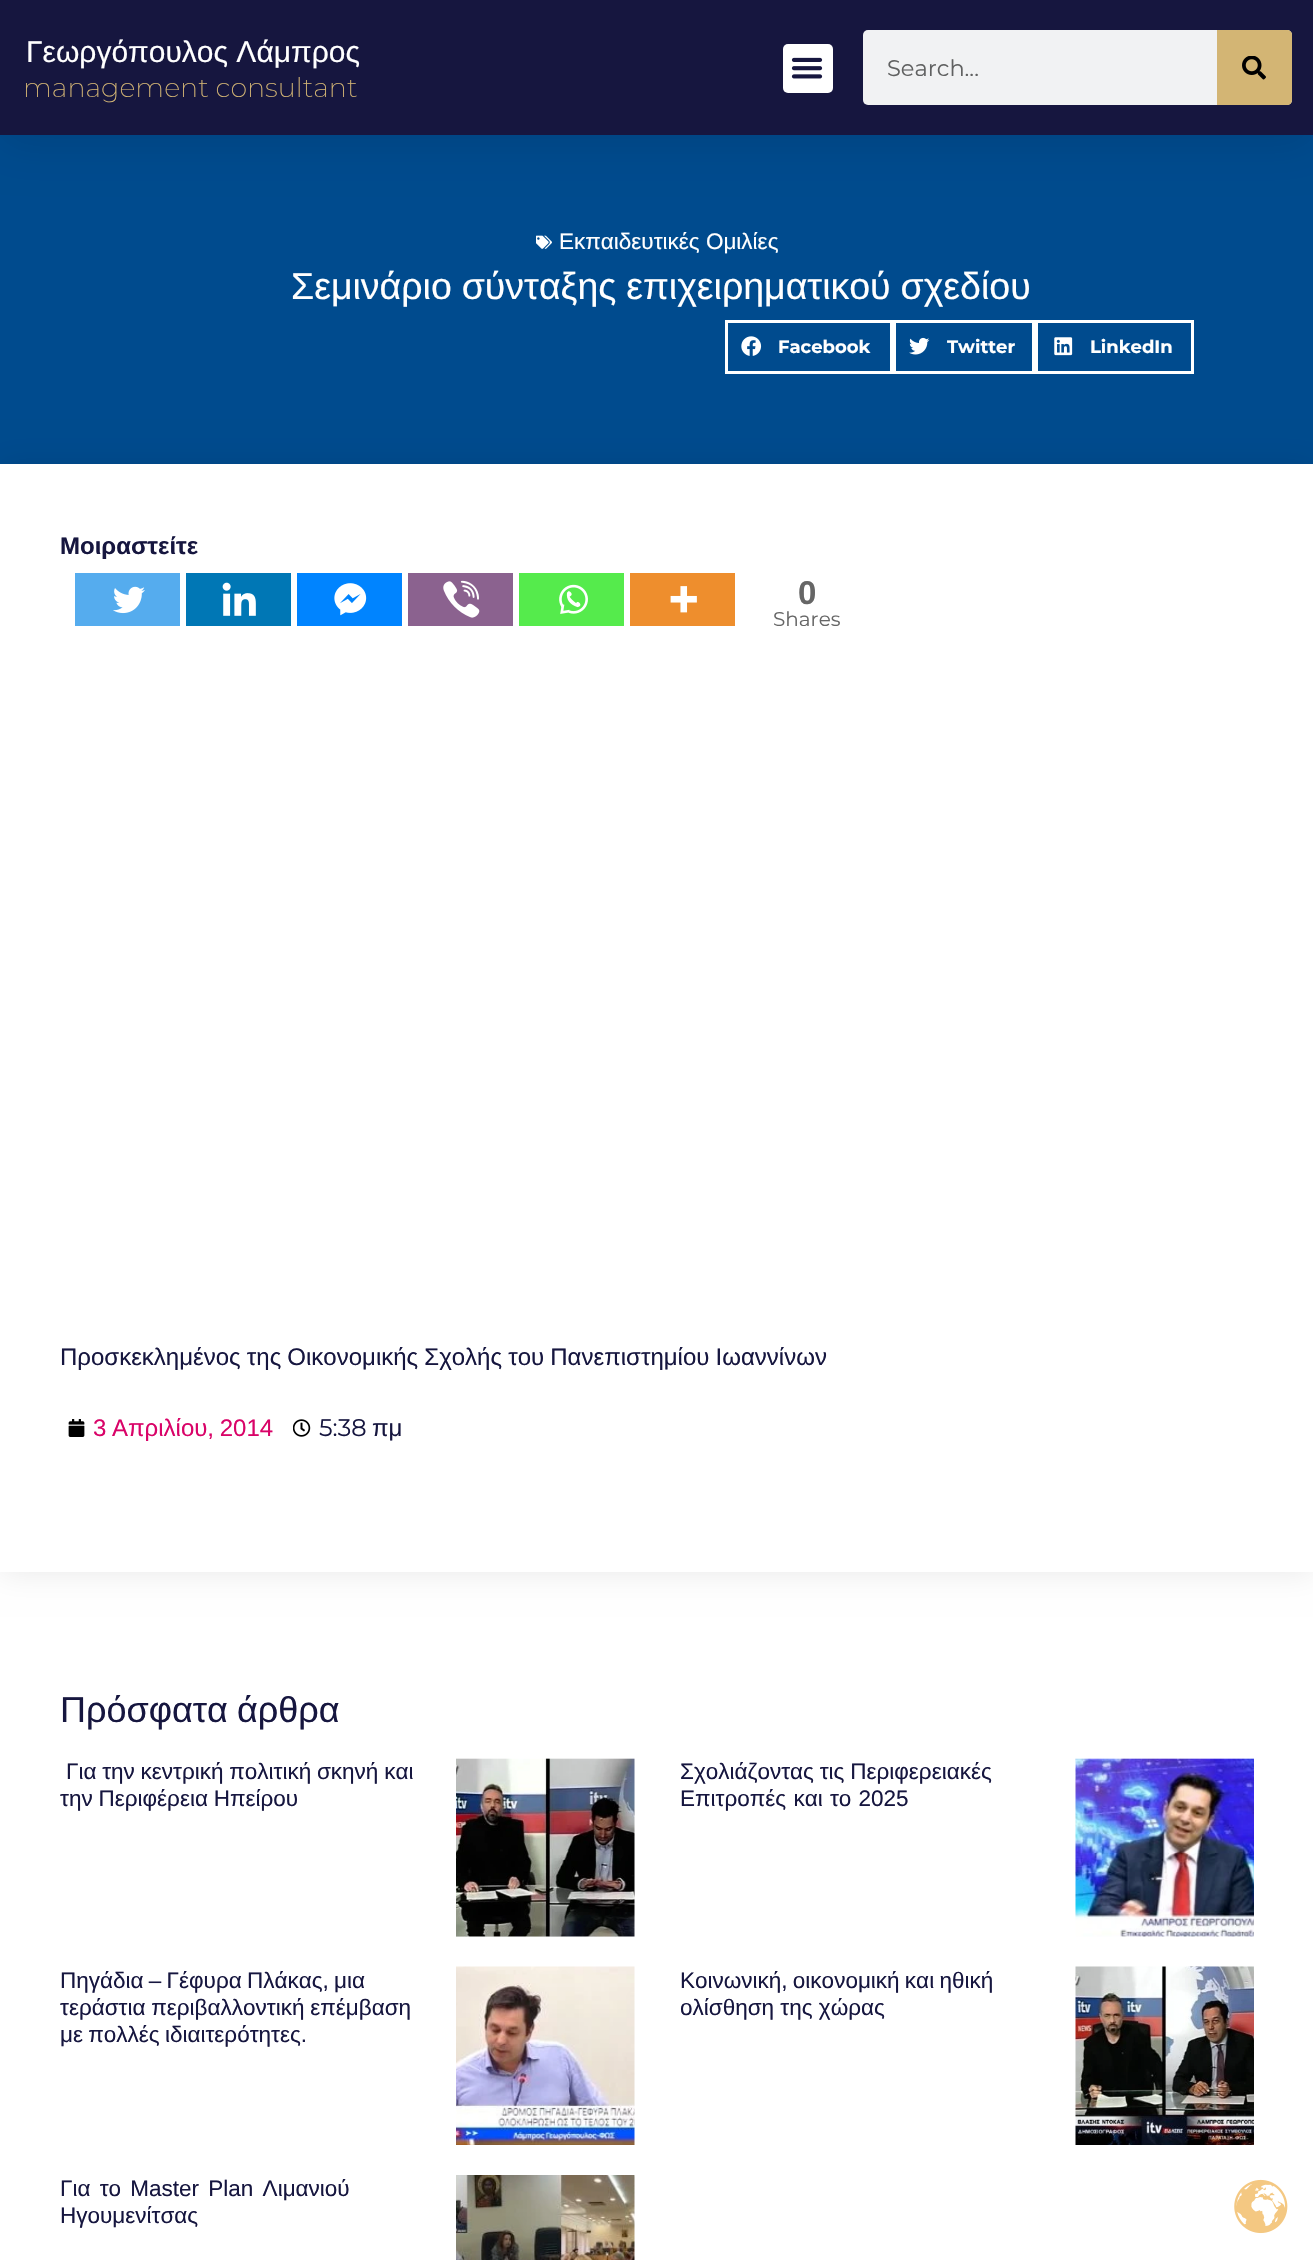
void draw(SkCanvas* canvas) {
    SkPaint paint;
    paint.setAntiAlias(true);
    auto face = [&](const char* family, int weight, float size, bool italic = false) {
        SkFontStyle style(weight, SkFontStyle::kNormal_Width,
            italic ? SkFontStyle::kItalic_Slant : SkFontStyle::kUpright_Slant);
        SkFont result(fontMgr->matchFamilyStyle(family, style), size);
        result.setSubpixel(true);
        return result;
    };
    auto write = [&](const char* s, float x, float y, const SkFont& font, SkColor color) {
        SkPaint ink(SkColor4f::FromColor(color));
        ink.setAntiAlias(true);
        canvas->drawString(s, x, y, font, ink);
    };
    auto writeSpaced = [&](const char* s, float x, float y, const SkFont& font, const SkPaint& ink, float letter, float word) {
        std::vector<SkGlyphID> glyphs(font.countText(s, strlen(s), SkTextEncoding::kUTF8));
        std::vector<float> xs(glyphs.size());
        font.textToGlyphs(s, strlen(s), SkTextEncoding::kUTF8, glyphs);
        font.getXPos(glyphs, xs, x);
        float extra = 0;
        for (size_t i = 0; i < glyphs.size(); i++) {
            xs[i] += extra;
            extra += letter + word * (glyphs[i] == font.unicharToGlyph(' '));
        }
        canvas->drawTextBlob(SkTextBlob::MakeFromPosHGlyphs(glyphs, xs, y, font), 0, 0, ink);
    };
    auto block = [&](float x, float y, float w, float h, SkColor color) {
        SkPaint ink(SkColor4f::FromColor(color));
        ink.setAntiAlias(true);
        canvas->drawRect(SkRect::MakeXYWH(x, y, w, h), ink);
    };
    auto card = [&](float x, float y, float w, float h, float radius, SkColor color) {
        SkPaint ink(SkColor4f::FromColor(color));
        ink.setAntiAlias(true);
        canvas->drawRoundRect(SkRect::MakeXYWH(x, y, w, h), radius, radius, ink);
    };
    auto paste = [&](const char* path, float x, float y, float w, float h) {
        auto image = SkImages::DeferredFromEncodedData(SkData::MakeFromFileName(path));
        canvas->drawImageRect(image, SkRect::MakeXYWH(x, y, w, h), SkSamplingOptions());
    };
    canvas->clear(SK_ColorWHITE);
    block(0, 135, 1313, 329, SkColorSetRGB(0, 75, 142));
    paint.setColor(SkColorSetARGB(26, 0, 0, 0));
    paint.setMaskFilter(SkMaskFilter::MakeBlur(kNormal_SkBlurStyle, 22.5f));
    canvas->drawRect(SkRect::MakeXYWH(0, 8, 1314, 135), paint);
    paint.setMaskFilter(nullptr);
    block(0, 0, 1313, 135, SkColorSetRGB(22, 22, 63));
    auto kFont1 = face("Liberation Sans", 400, 30);
    write("Γεωργόπουλος Λάμπρος", 26, 62, kFont1, SK_ColorWHITE);
    auto kFont2 = face("Montserrat", 200, 27);
    write("management consultant", 23, 97, kFont2, SkColorSetRGB(211, 181, 116));
    card(783, 44, 50, 49, 5, SK_ColorWHITE);
    paste("pic1.png", 791, 57, 32, 22);
    card(863, 30, 429, 75, 5, SkColorSetRGB(241, 242, 243));
    auto kFont3 = face("Montserrat", 400, 22.5f);
    write("Search...", 887, 76, kFont3, SkColorSetRGB(96, 97, 97));
    paint.setColor(SkColorSetRGB(211, 181, 116));
    canvas->drawPath(SkPathBuilder().moveTo(1217, 30).lineTo(1287, 30).cubicTo(1290, 30, 1292, 32, 1292, 35).lineTo(1292, 100).cubicTo(1292, 103, 1290, 105, 1287, 105).lineTo(1217, 105).close().detach(), paint);
    paste("pic2.png", 1242, 56, 24, 24);
    paste("pic3.png", 536, 235, 16, 14);
    auto kFont4 = face("Liberation Sans", 400, 22.5f);
    write("Εκπαιδευτικές Ομιλίες", 559, 249, kFont4, SK_ColorWHITE);
    auto kFont5 = face("Liberation Sans", 400, 37.5f);
    paint.setColor(SK_ColorWHITE);
    writeSpaced("Σεμινάριο σύνταξης επιχειρηματικού σχεδίου", 291, 299, kFont5, paint, 0, -0.5f);
    paint.setStyle(SkPaint::kStroke_Style);
    paint.setStrokeWidth(3);
    canvas->drawRect(SkRect::MakeXYWH(726.5f, 321.5f, 165, 51), paint);
    paste("pic4.png", 741, 336, 21, 20);
    auto kFont6 = face("Montserrat", 700, 18);
    write("Facebook", 778, 353, kFont6, SK_ColorWHITE);
    canvas->drawRect(SkRect::MakeXYWH(894.5f, 321.5f, 139, 51), paint);
    paste("pic5.png", 909, 337, 21, 18);
    write("Twitter", 947, 353, kFont6, SK_ColorWHITE);
    canvas->drawRect(SkRect::MakeXYWH(1036.5f, 321.5f, 156, 51), paint);
    paste("pic6.png", 1054, 337, 19, 19);
    write("LinkedIn", 1090, 353, kFont6, SK_ColorWHITE);
    canvas->save();
    canvas->clipPath(SkPathBuilder(SkPathFillType::kEvenOdd).moveTo(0, 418).lineTo(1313, 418).lineTo(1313, 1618).lineTo(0, 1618).close().moveTo(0, 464).lineTo(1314, 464).lineTo(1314, 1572).lineTo(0, 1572).close().detach(), true);
    paint.setStyle(SkPaint::kFill_Style);
    paint.setColor(SkColorSetARGB(23, 0, 0, 0));
    paint.setMaskFilter(SkMaskFilter::MakeBlur(kNormal_SkBlurStyle, 15));
    canvas->drawRect(SkRect::MakeXYWH(0, 464, 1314, 1108), paint);
    paint.setMaskFilter(nullptr);
    canvas->restore();
    auto kFont7 = face("Liberation Sans", 700, 24);
    write("Μοιραστείτε", 60, 554, kFont7, SkColorSetRGB(22, 22, 63));
    block(75, 573, 105, 53, SkColorSetRGB(85, 172, 238));
    paste("pic7.png", 113, 586, 32, 28);
    block(186, 573, 105, 53, SkColorSetRGB(0, 119, 181));
    paste("pic8.png", 222, 582, 34, 34);
    block(297, 573, 105, 53, SkColorSetRGB(0, 132, 255));
    paste("pic9.png", 334, 583, 33, 33);
    block(408, 573, 105, 53, SkColorSetRGB(139, 98, 143));
    paste("pic10.png", 443, 580, 37, 38);
    block(519, 573, 105, 53, SkColorSetRGB(85, 235, 76));
    paste("pic11.png", 559, 584, 29, 30);
    block(630, 573, 105, 53, SkColorSetRGB(238, 142, 45));
    paste("pic12.png", 670, 586, 27, 27);
    auto kFont8 = face("Liberation Sans", 700, 33);
    write("0", 798, 604, kFont8, SkColorSetRGB(102, 102, 102));
    auto kFont9 = face("Montserrat", 400, 20);
    write("Shares", 773, 626, kFont9, SkColorSetRGB(102, 102, 102));
    auto kFont10 = face("Liberation Sans", 400, 24);
    paint.setColor(SkColorSetRGB(22, 22, 63));
    writeSpaced("Προσκεκλημένος της Οικονομικής Σχολής του Πανεπιστημίου Ιωαννίνων", 60, 1365, kFont10, paint, 0, -0.5f);
    paste("pic13.png", 68, 1419, 17, 18);
    paint.setColor(SkColorSetRGB(217, 3, 104));
    writeSpaced("3 Απριλίου, 2014", 93, 1436, kFont10, paint, 0, -1);
    paste("pic14.png", 293, 1419, 18, 18);
    auto kFont11 = face("Montserrat", 400, 24);
    write("5:38", 319, 1436, kFont11, SkColorSetRGB(22, 22, 63));
    write("πμ", 372, 1436, kFont10, SkColorSetRGB(22, 22, 63));
    auto kFont12 = face("Liberation Sans", 400, 36);
    paint.setColor(SkColorSetRGB(22, 22, 63));
    writeSpaced("Πρόσφατα άρθρα", 60, 1722, kFont12, paint, 0, -1);
    writeSpaced("Για την κεντρική πολιτική σκηνή και", 66, 1779, kFont4, paint, 0, -0.5f);
    writeSpaced("την Περιφέρεια Ηπείρου", 60, 1806, kFont4, paint, 0, -0.5f);
    paste("pic15.png", 456, 1758, 179, 179);
    writeSpaced("Σχολιάζοντας τις Περιφερειακές", 680, 1779, kFont4, paint, 0, -0.5f);
    writeSpaced("Επιτροπές και το 2025", 680, 1806, kFont4, paint, 0, 1);
    paste("pic16.png", 1075, 1758, 179, 179);
    writeSpaced("Πηγάδια – Γέφυρα Πλάκας, μια", 60, 1988, kFont4, paint, 0, -1);
    writeSpaced("τεράστια περιβαλλοντική επέμβαση", 60, 2015, kFont4, paint, 0, -0.5f);
    writeSpaced("με πολλές ιδιαιτερότητες.", 60, 2042, kFont4, paint, 0, -1);
    paste("pic17.png", 456, 1966, 179, 179);
    writeSpaced("Κοινωνική, οικονομική και ηθική", 680, 1988, kFont4, paint, 0, -1);
    write("ολίσθηση της χώρας", 680, 2015, kFont4, SkColorSetRGB(22, 22, 63));
    paste("pic18.png", 1075, 1966, 179, 179);
    writeSpaced("Για το Master Plan Λιμανιού", 60, 2196, kFont4, paint, 0, 3);
    write("Ηγουμενίτσας", 60, 2223, kFont4, SkColorSetRGB(22, 22, 63));
    paste("pic19.png", 456, 2175, 179, 85);
    paste("pic20.png", 1234, 2179, 54, 55);
}
